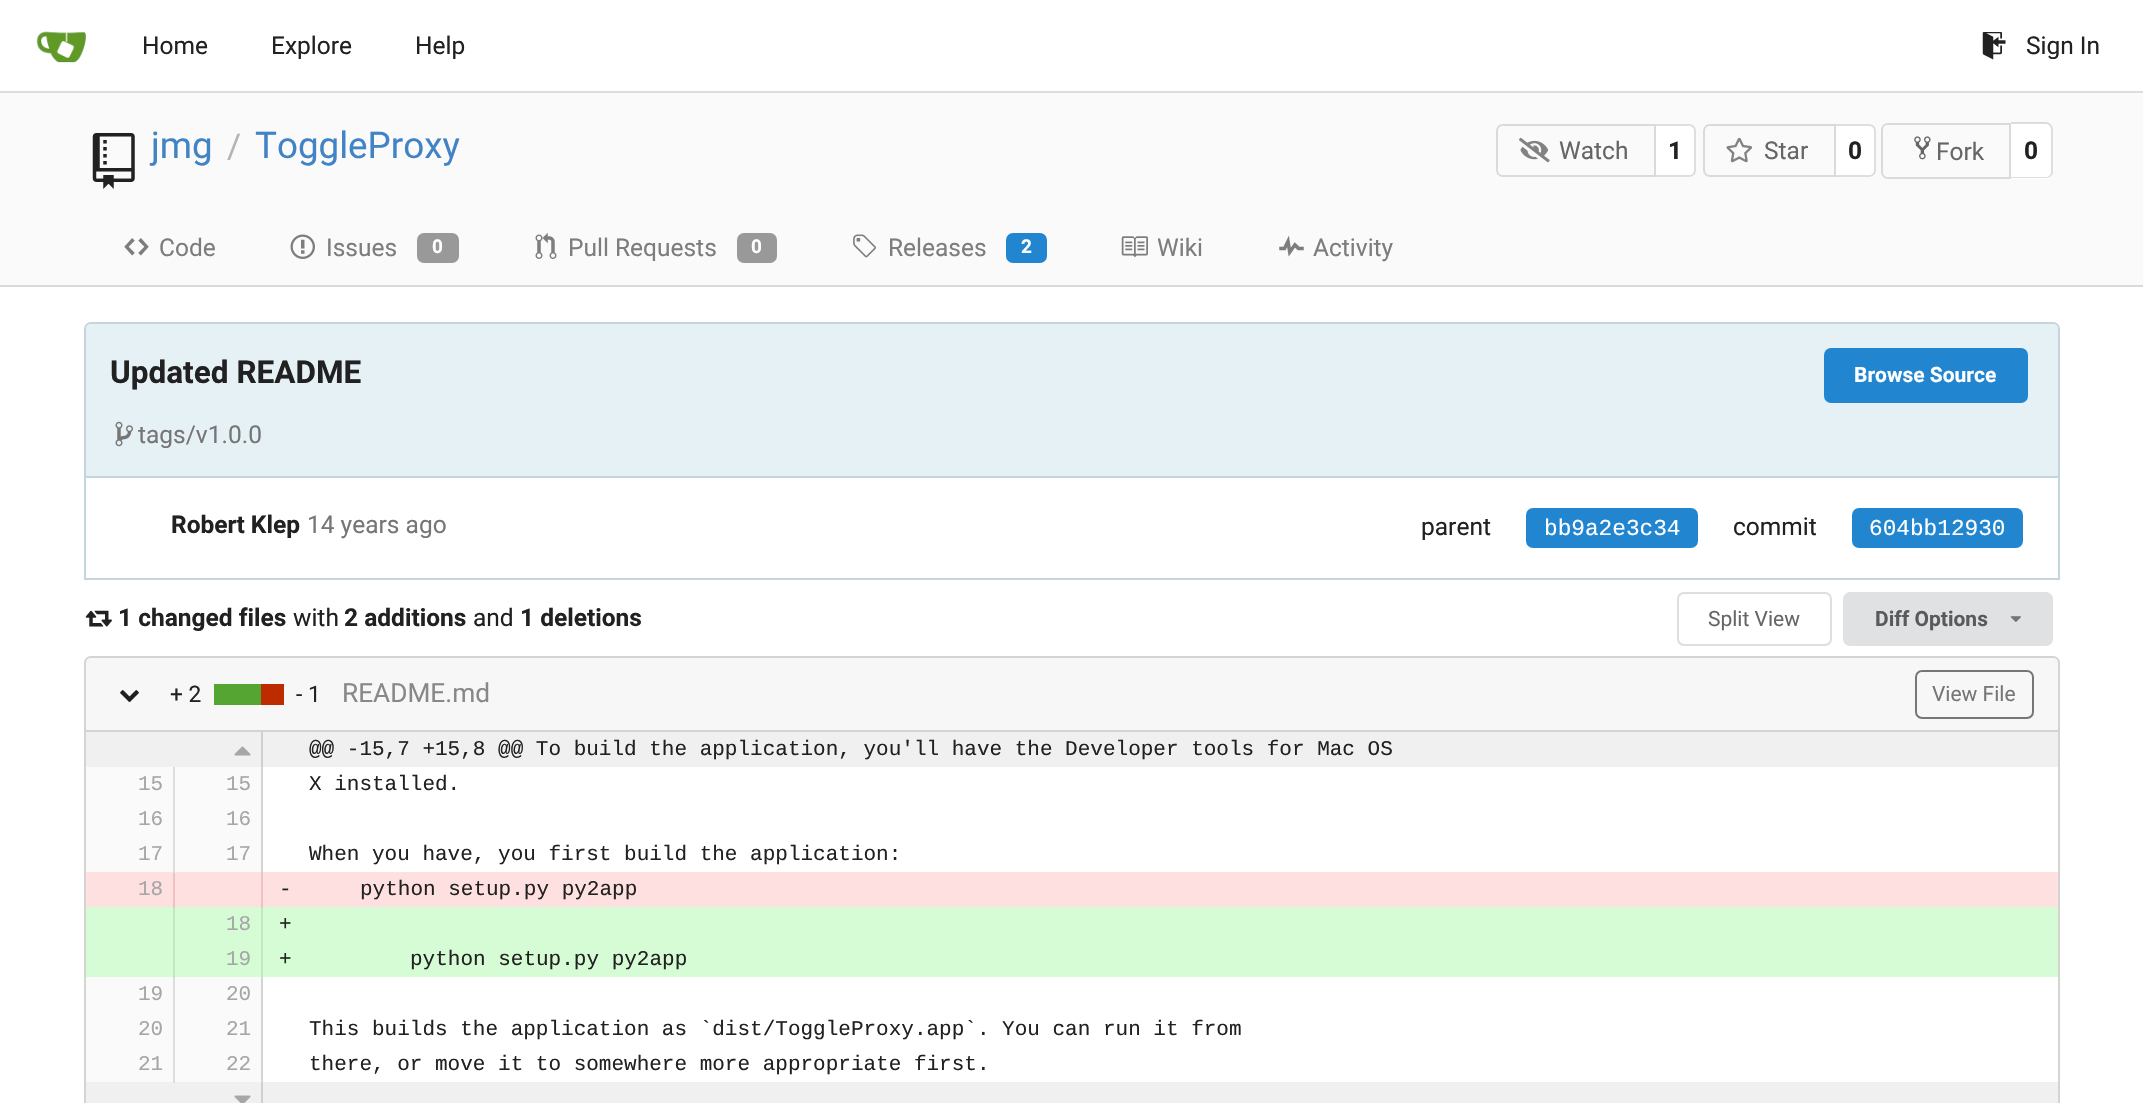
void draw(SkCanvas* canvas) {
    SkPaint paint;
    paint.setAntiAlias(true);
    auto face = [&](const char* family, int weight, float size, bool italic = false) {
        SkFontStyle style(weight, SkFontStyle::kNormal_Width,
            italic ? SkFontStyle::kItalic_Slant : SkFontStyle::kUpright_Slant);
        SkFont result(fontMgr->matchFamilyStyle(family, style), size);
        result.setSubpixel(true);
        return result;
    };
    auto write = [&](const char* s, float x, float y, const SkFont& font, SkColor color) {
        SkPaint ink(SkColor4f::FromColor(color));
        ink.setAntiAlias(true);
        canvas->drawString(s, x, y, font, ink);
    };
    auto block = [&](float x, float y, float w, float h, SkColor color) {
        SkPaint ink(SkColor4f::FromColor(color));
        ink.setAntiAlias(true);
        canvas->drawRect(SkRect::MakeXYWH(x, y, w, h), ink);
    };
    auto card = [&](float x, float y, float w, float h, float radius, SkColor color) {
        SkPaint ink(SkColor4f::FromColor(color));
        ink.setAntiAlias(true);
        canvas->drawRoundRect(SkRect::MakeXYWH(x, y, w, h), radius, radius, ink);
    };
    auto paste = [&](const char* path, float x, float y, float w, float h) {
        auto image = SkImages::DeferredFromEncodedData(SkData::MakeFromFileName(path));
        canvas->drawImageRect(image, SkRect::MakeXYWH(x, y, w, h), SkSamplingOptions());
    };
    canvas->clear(SK_ColorWHITE);
    block(0, 91, 2143, 2, SkColorSetRGB(221, 221, 221));
    paste("pic1.png", 36, 31, 50, 32);
    auto kFont1 = face("Roboto", 400, 24.5f);
    write("Home", 142, 54, kFont1, SkColorSetRGB(33, 33, 33));
    write("Explore", 271, 54, kFont1, SkColorSetRGB(33, 33, 33));
    write("Help", 415, 54, kFont1, SkColorSetRGB(33, 33, 33));
    paste("pic2.png", 1982, 32, 24, 28);
    write("Sign In", 2026, 54, kFont1, SkColorSetRGB(33, 33, 33));
    block(0, 93, 2143, 192, SkColorSetRGB(250, 250, 250));
    paste("pic3.png", 92, 133, 43, 56);
    auto kFont2 = face("Roboto", 400, 36.75f);
    write("jmg", 151, 158, kFont2, SkColorSetRGB(65, 131, 196));
    auto kFont3 = face("Roboto", 400, 34);
    write("/", 227, 158, kFont3, SkColorSetRGB(180, 180, 180));
    write("ToggleProxy", 255, 158, kFont2, SkColorSetRGB(65, 131, 196));
    paint.setStyle(SkPaint::kStroke_Style);
    paint.setStrokeWidth(2);
    paint.setColor(SkColorSetRGB(218, 218, 218));
    canvas->drawPath(SkPathBuilder().moveTo(1503, 125).lineTo(1655, 125).lineTo(1655, 176).lineTo(1503, 176).cubicTo(1499.5f, 176, 1497, 173.5f, 1497, 170).lineTo(1497, 131).cubicTo(1497, 127.5f, 1499.5f, 125, 1503, 125).close().detach(), paint);
    paste("pic4.png", 1519, 137, 31, 26);
    write("Watch", 1559, 159, kFont1, SkColorSetRGB(102, 102, 102));
    paint.setStyle(SkPaint::kFill_Style);
    paint.setColor(SK_ColorWHITE);
    canvas->drawPath(SkPathBuilder().moveTo(1656, 124).lineTo(1689, 124).cubicTo(1693, 124, 1696, 127, 1696, 131).lineTo(1696, 170).cubicTo(1696, 174, 1693, 177, 1689, 177).lineTo(1656, 177).close().detach(), paint);
    paint.setColor(SkColorSetRGB(222, 222, 222));
    canvas->drawPath(SkPathBuilder(SkPathFillType::kEvenOdd).moveTo(1656, 124).lineTo(1689, 124).cubicTo(1693, 124, 1696, 127, 1696, 131).lineTo(1696, 170).cubicTo(1696, 174, 1693, 177, 1689, 177).lineTo(1656, 177).close().moveTo(1656, 126).lineTo(1689, 126).cubicTo(1692, 126, 1694, 128, 1694, 131).lineTo(1694, 170).cubicTo(1694, 173, 1692, 175, 1689, 175).lineTo(1656, 175).close().detach(), paint);
    auto kFont4 = face("Roboto", 700, 24.5f);
    write("1", 1668, 159, kFont4, SkColorSetRGB(33, 33, 33));
    paint.setStyle(SkPaint::kStroke_Style);
    paint.setColor(SkColorSetRGB(218, 218, 218));
    canvas->drawPath(SkPathBuilder().moveTo(1710, 125).lineTo(1835, 125).lineTo(1835, 176).lineTo(1710, 176).cubicTo(1706.5f, 176, 1704, 173.5f, 1704, 170).lineTo(1704, 131).cubicTo(1704, 127.5f, 1706.5f, 125, 1710, 125).close().detach(), paint);
    paste("pic5.png", 1726, 137, 26, 26);
    write("Star", 1764, 159, kFont1, SkColorSetRGB(102, 102, 102));
    paint.setStyle(SkPaint::kFill_Style);
    paint.setColor(SK_ColorWHITE);
    canvas->drawPath(SkPathBuilder().moveTo(1836, 124).lineTo(1869, 124).cubicTo(1873, 124, 1876, 127, 1876, 131).lineTo(1876, 170).cubicTo(1876, 174, 1873, 177, 1869, 177).lineTo(1836, 177).close().detach(), paint);
    paint.setColor(SkColorSetRGB(222, 222, 222));
    canvas->drawPath(SkPathBuilder(SkPathFillType::kEvenOdd).moveTo(1836, 124).lineTo(1869, 124).cubicTo(1873, 124, 1876, 127, 1876, 131).lineTo(1876, 170).cubicTo(1876, 174, 1873, 177, 1869, 177).lineTo(1836, 177).close().moveTo(1836, 126).lineTo(1869, 126).cubicTo(1872, 126, 1874, 128, 1874, 131).lineTo(1874, 170).cubicTo(1874, 173, 1872, 175, 1869, 175).lineTo(1836, 175).close().detach(), paint);
    write("0", 1848, 159, kFont4, SkColorSetRGB(33, 33, 33));
    paint.setStyle(SkPaint::kStroke_Style);
    paint.setColor(SkColorSetRGB(218, 218, 218));
    canvas->drawPath(SkPathBuilder().moveTo(1888, 124).lineTo(2010, 124).lineTo(2010, 178).lineTo(1888, 178).cubicTo(1884.5f, 178, 1882, 175.5f, 1882, 172).lineTo(1882, 130).cubicTo(1882, 126.5f, 1884.5f, 124, 1888, 124).close().detach(), paint);
    paste("pic6.png", 1914, 136, 17, 24);
    write("Fork", 1936, 160, kFont1, SkColorSetRGB(102, 102, 102));
    paint.setStyle(SkPaint::kFill_Style);
    paint.setColor(SK_ColorWHITE);
    canvas->drawPath(SkPathBuilder().moveTo(2011, 123).lineTo(2046, 123).cubicTo(2050, 123, 2053, 126, 2053, 130).lineTo(2053, 172).cubicTo(2053, 176, 2050, 179, 2046, 179).lineTo(2011, 179).close().detach(), paint);
    paint.setColor(SkColorSetARGB(38, 34, 36, 38));
    canvas->drawPath(SkPathBuilder(SkPathFillType::kEvenOdd).moveTo(2011, 122).lineTo(2046, 122).cubicTo(2050, 122, 2053, 126, 2053, 130).lineTo(2053, 172).cubicTo(2053, 175, 2050, 178, 2046, 178).lineTo(2011, 178).close().moveTo(2011, 124).lineTo(2046, 124).cubicTo(2049, 124, 2051, 127, 2051, 130).lineTo(2051, 172).cubicTo(2051, 174, 2049, 177, 2046, 177).lineTo(2011, 177).close().detach(), paint);
    write("0", 2024, 159, kFont4, SkColorSetRGB(33, 33, 33));
    paste("pic7.png", 124, 238, 25, 18);
    write("Code", 159, 256, kFont1, SkColorSetRGB(125, 125, 125));
    paste("pic8.png", 290, 234, 25, 25);
    write("Issues", 326, 256, kFont1, SkColorSetRGB(125, 125, 125));
    card(417, 233, 42, 30, 7, SkColorSetRGB(153, 153, 153));
    auto kFont5 = face("Roboto", 700, 19);
    write("0", 432, 253, kFont5, SK_ColorWHITE);
    paste("pic9.png", 535, 233, 22, 26);
    write("Pull Requests", 568, 256, kFont1, SkColorSetRGB(125, 125, 125));
    card(737, 233, 40, 30, 7, SkColorSetRGB(153, 153, 153));
    write("0", 751, 253, kFont5, SK_ColorWHITE);
    paste("pic10.png", 853, 234, 23, 24);
    write("Releases", 888, 256, kFont1, SkColorSetRGB(125, 125, 125));
    card(1006, 233, 41, 30, 7, SkColorSetRGB(33, 133, 208));
    write("2", 1021, 253, kFont5, SK_ColorWHITE);
    paste("pic11.png", 1121, 236, 27, 22);
    write("Wiki", 1157, 256, kFont1, SkColorSetRGB(125, 125, 125));
    paste("pic12.png", 1279, 235, 25, 22);
    write("Activity", 1313, 256, kFont1, SkColorSetRGB(125, 125, 125));
    block(0, 285, 2143, 2, SkColorSetRGB(218, 218, 218));
    paint.setColor(SkColorSetRGB(230, 241, 246));
    canvas->drawPath(SkPathBuilder().moveTo(91, 323).lineTo(2053, 323).cubicTo(2056.5f, 323, 2059, 325.5f, 2059, 329).lineTo(2059, 477).lineTo(85, 477).lineTo(85, 329).cubicTo(85, 325.5f, 87.5f, 323, 91, 323).close().detach(), paint);
    paint.setStyle(SkPaint::kStroke_Style);
    paint.setColor(SkColorSetRGB(197, 213, 221));
    canvas->drawPath(SkPathBuilder().moveTo(91, 323).lineTo(2053, 323).cubicTo(2056.5f, 323, 2059, 325.5f, 2059, 329).lineTo(2059, 477).lineTo(85, 477).lineTo(85, 329).cubicTo(85, 325.5f, 87.5f, 323, 91, 323).close().detach(), paint);
    auto kFont6 = face("Roboto", 700, 31.5f);
    write("Updated README", 110, 383, kFont6, SkColorSetRGB(33, 33, 33));
    card(1824, 348, 204, 55, 7, SkColorSetRGB(33, 133, 208));
    auto kFont7 = face("Roboto", 700, 21);
    write("Browse Source", 1854, 382, kFont7, SK_ColorWHITE);
    paste("pic13.png", 115, 421, 18, 26);
    write("tags/v1.0.0", 138, 443, kFont1, SkColorSetRGB(118, 118, 118));
    block(2058, 478, 2, 101, SkColorSetRGB(197, 213, 221));
    block(84, 578, 1976, 2, SkColorSetRGB(197, 213, 221));
    block(84, 478, 2, 101, SkColorSetRGB(197, 213, 221));
    write("Robert Klep", 171, 533, kFont4, SkColorSetRGB(33, 33, 33));
    write("14 years ago", 307, 533, kFont1, SkColorSetRGB(118, 118, 118));
    write("parent", 1421, 535, kFont1, SkColorSetRGB(33, 33, 33));
    card(1526, 508, 172, 40, 7, SkColorSetRGB(33, 133, 208));
    auto kFont8 = face("Liberation Mono", 400, 22.75f);
    write("bb9a2e3c34", 1544, 535, kFont8, SK_ColorWHITE);
    write("commit", 1733, 535, kFont1, SkColorSetRGB(33, 33, 33));
    card(1852, 508, 171, 40, 7, SkColorSetRGB(33, 133, 208));
    write("604bb12930", 1869, 535, kFont8, SK_ColorWHITE);
    paste("pic14.png", 85, 610, 27, 17);
    write("1 changed files", 118, 626, kFont4, SkColorSetRGB(33, 33, 33));
    write("with", 293, 626, kFont1, SkColorSetRGB(33, 33, 33));
    write("2 additions", 344, 626, kFont4, SkColorSetRGB(33, 33, 33));
    write("and", 473, 626, kFont1, SkColorSetRGB(33, 33, 33));
    write("1 deletions", 520, 626, kFont4, SkColorSetRGB(33, 33, 33));
    paint.setColor(SkColorSetRGB(222, 222, 222));
    canvas->drawRoundRect(SkRect::MakeXYWH(1678, 593, 153, 52), 6, 6, paint);
    auto kFont9 = face("Roboto", 400, 21);
    write("Split View", 1708, 626, kFont9, SkColorSetRGB(102, 102, 102));
    card(1843, 592, 210, 54, 7, SkColorSetRGB(224, 225, 226));
    write("Diff Options", 1875, 626, kFont7, SkColorSetRGB(90, 90, 90));
    paste("pic15.png", 2010, 616, 11, 6);
    paint.setStyle(SkPaint::kFill_Style);
    paint.setColor(SkColorSetRGB(247, 247, 247));
    canvas->drawPath(SkPathBuilder().moveTo(91, 657).lineTo(2053, 657).cubicTo(2056.5f, 657, 2059, 659.5f, 2059, 663).lineTo(2059, 731).lineTo(85, 731).lineTo(85, 663).cubicTo(85, 659.5f, 87.5f, 657, 91, 657).close().detach(), paint);
    paint.setStyle(SkPaint::kStroke_Style);
    paint.setColor(SkColorSetRGB(212, 212, 213));
    canvas->drawPath(SkPathBuilder().moveTo(91, 657).lineTo(2053, 657).cubicTo(2056.5f, 657, 2059, 659.5f, 2059, 663).lineTo(2059, 731).lineTo(85, 731).lineTo(85, 663).cubicTo(85, 659.5f, 87.5f, 657, 91, 657).close().detach(), paint);
    paste("pic16.png", 120, 690, 19, 13);
    auto kFont10 = face("Roboto", 400, 22.75f);
    write("+ 2", 170, 702, kFont10, SkColorSetRGB(33, 33, 33));
    block(261, 684, 23, 21, SkColorSetRGB(189, 44, 0));
    block(214, 684, 47, 21, SkColorSetRGB(85, 165, 50));
    write("- 1", 296, 702, kFont10, SkColorSetRGB(33, 33, 33));
    auto kFont11 = face("Roboto", 400, 26.25f);
    write("README.md", 342, 702, kFont11, SkColorSetRGB(136, 136, 136));
    paint.setColor(SkColorSetRGB(118, 118, 118));
    canvas->drawRoundRect(SkRect::MakeXYWH(1916, 671, 117, 47), 6, 6, paint);
    write("View File", 1932, 701, kFont9, SkColorSetRGB(118, 118, 118));
    block(2058, 732, 2, 371, SkColorSetRGB(212, 212, 213));
    block(84, 732, 2, 371, SkColorSetRGB(212, 212, 213));
    block(86, 732, 1972, 35, SkColorSetRGB(240, 240, 240));
    block(86, 1082, 1972, 21, SkColorSetRGB(240, 240, 240));
    block(261, 1082, 2, 21, SkColorSetRGB(211, 207, 207));
    block(261, 977, 2, 106, SkColorSetRGB(212, 212, 213));
    block(261, 907, 2, 71, SkColorSetRGB(193, 233, 193));
    block(261, 872, 2, 36, SkColorSetRGB(241, 192, 192));
    block(261, 767, 2, 106, SkColorSetRGB(212, 212, 213));
    block(261, 732, 2, 36, SkColorSetRGB(211, 207, 207));
    paste("pic17.png", 234, 746, 17, 10);
    auto kFont12 = face("Liberation Mono", 400, 21);
    write("@@ -15,7 +15,8 @@ To build the application, you'll have the Developer tools for Mac OS", 309, 755, kFont12, SkColorSetRGB(33, 33, 33));
    block(86, 767, 87, 105, SkColorSetRGB(250, 250, 250));
    write("15", 138, 790, kFont12, SkColorSetRGB(166, 166, 166));
    block(175, 767, 86, 105, SkColorSetRGB(250, 250, 250));
    write("15", 226, 790, kFont12, SkColorSetRGB(166, 166, 166));
    write("X installed.", 309, 790, kFont12, SkColorSetRGB(33, 33, 33));
    write("16", 138, 825, kFont12, SkColorSetRGB(166, 166, 166));
    write("16", 226, 825, kFont12, SkColorSetRGB(166, 166, 166));
    block(173, 977, 2, 106, SkColorSetRGB(221, 221, 221));
    block(173, 907, 2, 71, SkColorSetRGB(193, 233, 193));
    block(173, 872, 2, 36, SkColorSetRGB(241, 192, 192));
    block(173, 767, 2, 106, SkColorSetRGB(221, 221, 221));
    write("17", 138, 860, kFont12, SkColorSetRGB(166, 166, 166));
    write("17", 226, 860, kFont12, SkColorSetRGB(166, 166, 166));
    write("When you have, you first build the application:", 309, 860, kFont12, SkColorSetRGB(33, 33, 33));
    block(86, 872, 87, 35, SkColorSetRGB(255, 224, 224));
    write("18", 138, 895, kFont12, SkColorSetRGB(166, 166, 166));
    block(175, 872, 86, 35, SkColorSetRGB(255, 224, 224));
    block(263, 872, 1795, 35, SkColorSetRGB(255, 224, 224));
    write("-", 279, 895, kFont12, SkColorSetRGB(33, 33, 33));
    write("python setup.py py2app", 360, 895, kFont12, SkColorSetRGB(33, 33, 33));
    block(86, 907, 87, 70, SkColorSetRGB(214, 252, 214));
    block(175, 907, 86, 70, SkColorSetRGB(214, 252, 214));
    write("18", 226, 930, kFont12, SkColorSetRGB(166, 166, 166));
    block(263, 907, 1795, 35, SkColorSetRGB(214, 252, 214));
    write("+", 279, 930, kFont12, SkColorSetRGB(33, 33, 33));
    write("19", 226, 965, kFont12, SkColorSetRGB(166, 166, 166));
    block(263, 942, 1795, 35, SkColorSetRGB(214, 252, 214));
    write("+", 279, 965, kFont12, SkColorSetRGB(33, 33, 33));
    write("python setup.py py2app", 410, 965, kFont12, SkColorSetRGB(33, 33, 33));
    block(86, 977, 87, 105, SkColorSetRGB(250, 250, 250));
    write("19", 138, 1000, kFont12, SkColorSetRGB(166, 166, 166));
    block(175, 977, 86, 105, SkColorSetRGB(250, 250, 250));
    write("20", 226, 1000, kFont12, SkColorSetRGB(166, 166, 166));
    write("20", 138, 1035, kFont12, SkColorSetRGB(166, 166, 166));
    write("21", 226, 1035, kFont12, SkColorSetRGB(166, 166, 166));
    write("This builds the application as `dist/ToggleProxy.app`. You can run it from", 309, 1035, kFont12, SkColorSetRGB(33, 33, 33));
    write("21", 138, 1070, kFont12, SkColorSetRGB(166, 166, 166));
    write("22", 226, 1070, kFont12, SkColorSetRGB(166, 166, 166));
    write("there, or move it to somewhere more appropriate first.", 309, 1070, kFont12, SkColorSetRGB(33, 33, 33));
    paste("pic18.png", 234, 1095, 17, 8);
}
